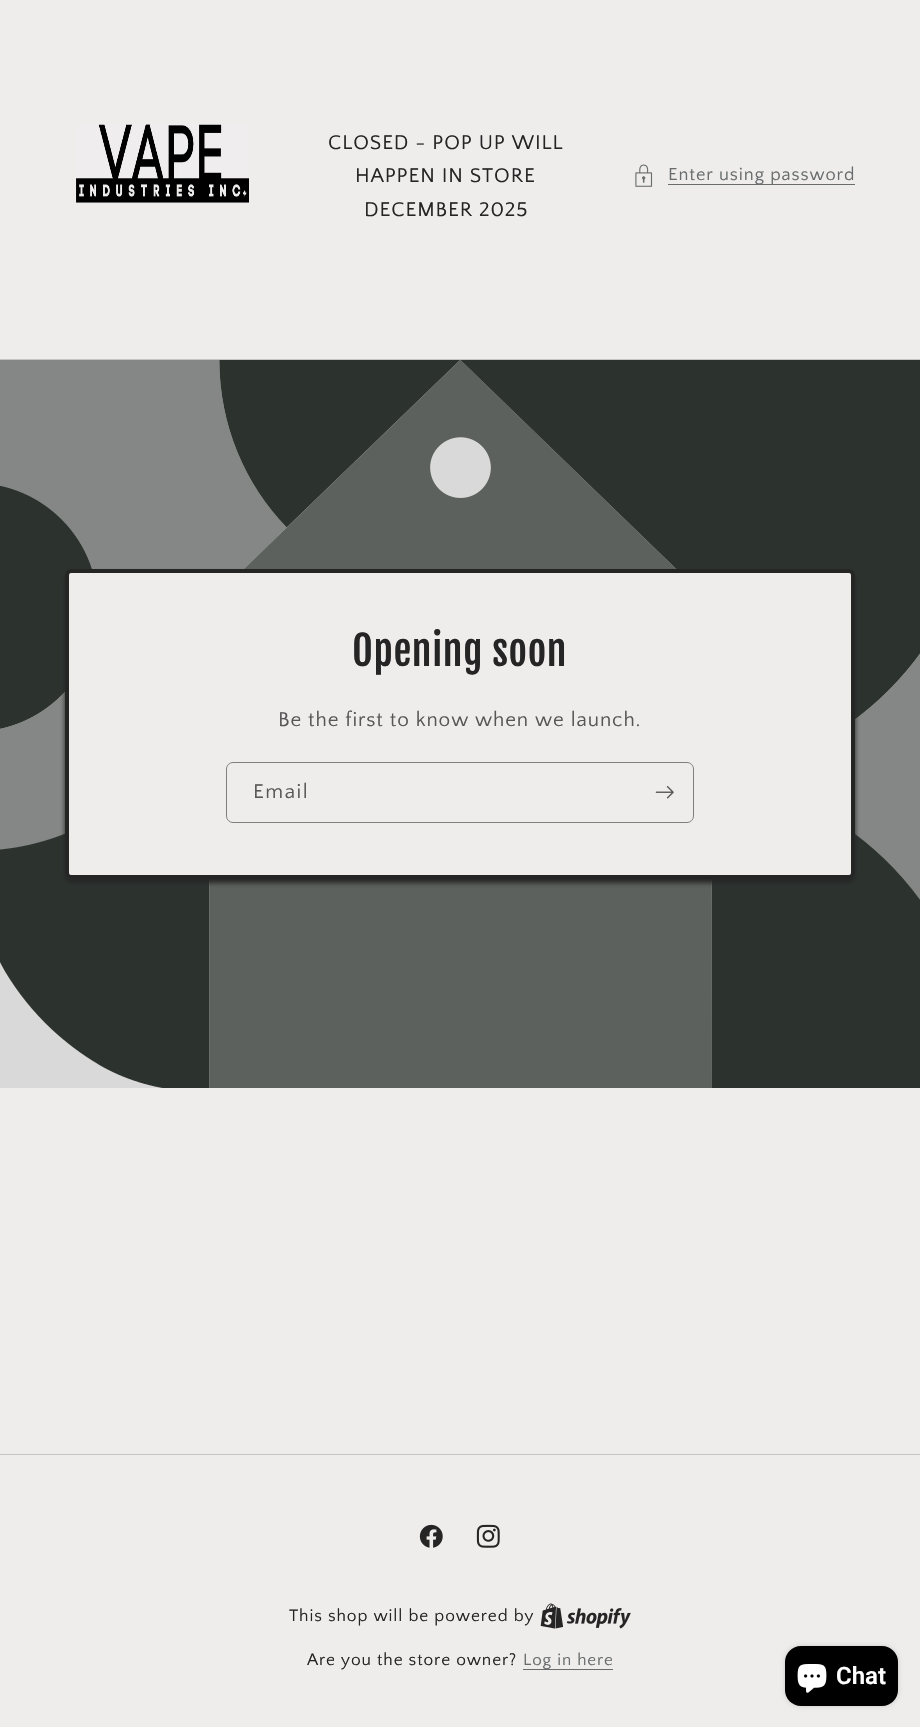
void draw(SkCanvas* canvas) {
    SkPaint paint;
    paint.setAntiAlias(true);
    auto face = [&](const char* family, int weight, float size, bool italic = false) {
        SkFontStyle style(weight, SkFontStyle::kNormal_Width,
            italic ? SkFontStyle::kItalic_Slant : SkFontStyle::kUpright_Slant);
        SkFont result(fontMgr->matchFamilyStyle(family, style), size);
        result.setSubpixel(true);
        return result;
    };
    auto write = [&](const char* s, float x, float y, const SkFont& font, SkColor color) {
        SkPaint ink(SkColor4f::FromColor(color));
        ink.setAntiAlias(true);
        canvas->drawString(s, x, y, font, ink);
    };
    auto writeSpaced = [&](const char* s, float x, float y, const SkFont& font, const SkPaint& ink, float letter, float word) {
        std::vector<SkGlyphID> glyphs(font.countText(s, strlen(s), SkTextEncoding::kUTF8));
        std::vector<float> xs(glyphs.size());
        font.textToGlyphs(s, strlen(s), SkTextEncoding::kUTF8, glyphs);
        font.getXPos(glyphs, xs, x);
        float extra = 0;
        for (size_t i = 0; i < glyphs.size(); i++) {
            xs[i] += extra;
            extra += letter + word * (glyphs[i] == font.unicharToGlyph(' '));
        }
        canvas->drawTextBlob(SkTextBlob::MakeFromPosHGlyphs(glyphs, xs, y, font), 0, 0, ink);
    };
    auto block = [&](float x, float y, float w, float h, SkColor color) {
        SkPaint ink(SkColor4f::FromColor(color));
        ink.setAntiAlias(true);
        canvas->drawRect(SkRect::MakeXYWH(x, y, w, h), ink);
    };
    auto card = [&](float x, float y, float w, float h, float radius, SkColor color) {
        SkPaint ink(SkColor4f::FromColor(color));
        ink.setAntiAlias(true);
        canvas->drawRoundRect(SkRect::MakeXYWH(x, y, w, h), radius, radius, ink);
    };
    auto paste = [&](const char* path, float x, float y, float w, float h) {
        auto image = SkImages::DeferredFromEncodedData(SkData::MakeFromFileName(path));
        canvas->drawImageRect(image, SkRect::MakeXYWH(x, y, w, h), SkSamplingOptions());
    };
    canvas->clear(SkColorSetRGB(239, 236, 236));
    paste("pic1.png", 76, 124, 173, 79);
    auto kFont1 = face("Quattrocento Sans", 400, 20.75f);
    paint.setColor(SkColorSetRGB(37, 37, 37));
    writeSpaced("CLOSED - POP UP WILL", 328, 149, kFont1, paint, 0.9f, 0);
    writeSpaced("HAPPEN IN STORE", 355, 182, kFont1, paint, 0.9f, 0);
    writeSpaced("DECEMBER 2025", 364, 216, kFont1, paint, 0.9f, 0);
    paste("pic2.png", 635, 164, 18, 23);
    block(668, 184, 187, 1, SkColorSetRGB(104, 109, 108));
    auto kFont2 = face("Quattrocento Sans", 400, 18.25f);
    paint.setColor(SkColorSetRGB(104, 108, 108));
    writeSpaced("Enter using password", 668, 180, kFont2, paint, 0.9f, 0);
    block(0, 359, 920, 1, SkColorSetRGB(199, 196, 196));
    paste("pic3.png", 0, 360, 920, 728);
    paint.setColor(SkColorSetRGB(239, 236, 236));
    canvas->drawRoundRect(SkRect::MakeXYWH(67, 571, 786, 306), 4, 4, paint);
    paint.setStyle(SkPaint::kStroke_Style);
    paint.setStrokeWidth(4);
    paint.setColor(SkColorSetRGB(37, 37, 37));
    canvas->drawRoundRect(SkRect::MakeXYWH(67, 571, 786, 306), 4, 4, paint);
    canvas->save();
    canvas->clipPath(SkPathBuilder(SkPathFillType::kEvenOdd).moveTo(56, 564).lineTo(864, 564).lineTo(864, 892).lineTo(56, 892).close().moveTo(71, 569).lineTo(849, 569).cubicTo(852.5f, 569, 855, 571.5f, 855, 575).lineTo(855, 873).cubicTo(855, 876.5f, 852.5f, 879, 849, 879).lineTo(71, 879).cubicTo(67.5f, 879, 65, 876.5f, 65, 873).lineTo(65, 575).cubicTo(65, 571.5f, 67.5f, 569, 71, 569).close().detach(), true);
    paint.setStyle(SkPaint::kFill_Style);
    paint.setMaskFilter(SkMaskFilter::MakeBlur(kNormal_SkBlurStyle, 2.5f));
    canvas->drawRoundRect(SkRect::MakeXYWH(65, 573, 790, 310), 6, 6, paint);
    paint.setMaskFilter(nullptr);
    canvas->restore();
    auto kFont3 = face("Fjalla One", 400, 40);
    writeSpaced("Opening soon", 352, 666, kFont3, paint, 0.6f, 0);
    paint.setColor(SkColorSetRGB(88, 87, 87));
    writeSpaced("Be the first to know when we launch.", 278, 726, kFont1, paint, 0.9f, 0);
    paint.setStyle(SkPaint::kStroke_Style);
    paint.setStrokeWidth(1);
    paint.setColor(SkColorSetRGB(128, 127, 127));
    canvas->drawRoundRect(SkRect::MakeXYWH(226.5f, 762.5f, 467, 60), 6.5f, 6.5f, paint);
    paint.setStyle(SkPaint::kFill_Style);
    paint.setColor(SkColorSetRGB(88, 87, 87));
    writeSpaced("Email", 253, 798, kFont1, paint, 1.5f, 0);
    paste("pic4.png", 655, 786, 19, 13);
    block(0, 1454, 920, 1, SkColorSetRGB(199, 196, 196));
    paste("pic5.png", 419, 1524, 24, 24);
    paste("pic6.png", 476, 1524, 24, 24);
    auto kFont4 = face("Quattrocento Sans", 400, 17.3f);
    paint.setColor(SkColorSetRGB(37, 37, 37));
    writeSpaced("This shop will be powered by", 289, 1621, kFont4, paint, 0.9f, 0);
    paste("pic7.png", 540, 1603, 91, 26);
    writeSpaced("Are you the store owner?", 307, 1665, kFont4, paint, 0.9f, 0);
    block(523, 1669, 90, 1, SkColorSetRGB(104, 109, 108));
    auto kFont5 = face("Quattrocento Sans", 400, 17);
    paint.setColor(SkColorSetRGB(104, 108, 108));
    writeSpaced("Log in here", 523, 1665, kFont5, paint, 0.9f, 0);
    paint.setColor(SkColorSetARGB(38, 0, 0, 0));
    paint.setMaskFilter(SkMaskFilter::MakeBlur(kNormal_SkBlurStyle, 2.5f));
    canvas->drawRoundRect(SkRect::MakeXYWH(785, 1646, 113, 60), 16, 16, paint);
    paint.setMaskFilter(nullptr);
    card(785, 1646, 113, 60, 16, SK_ColorBLACK);
    paste("pic8.png", 797, 1664, 30, 29);
    auto kFont6 = face("Roboto", 600, 24);
    write("Chat", 836, 1684, kFont6, SK_ColorWHITE);
}
